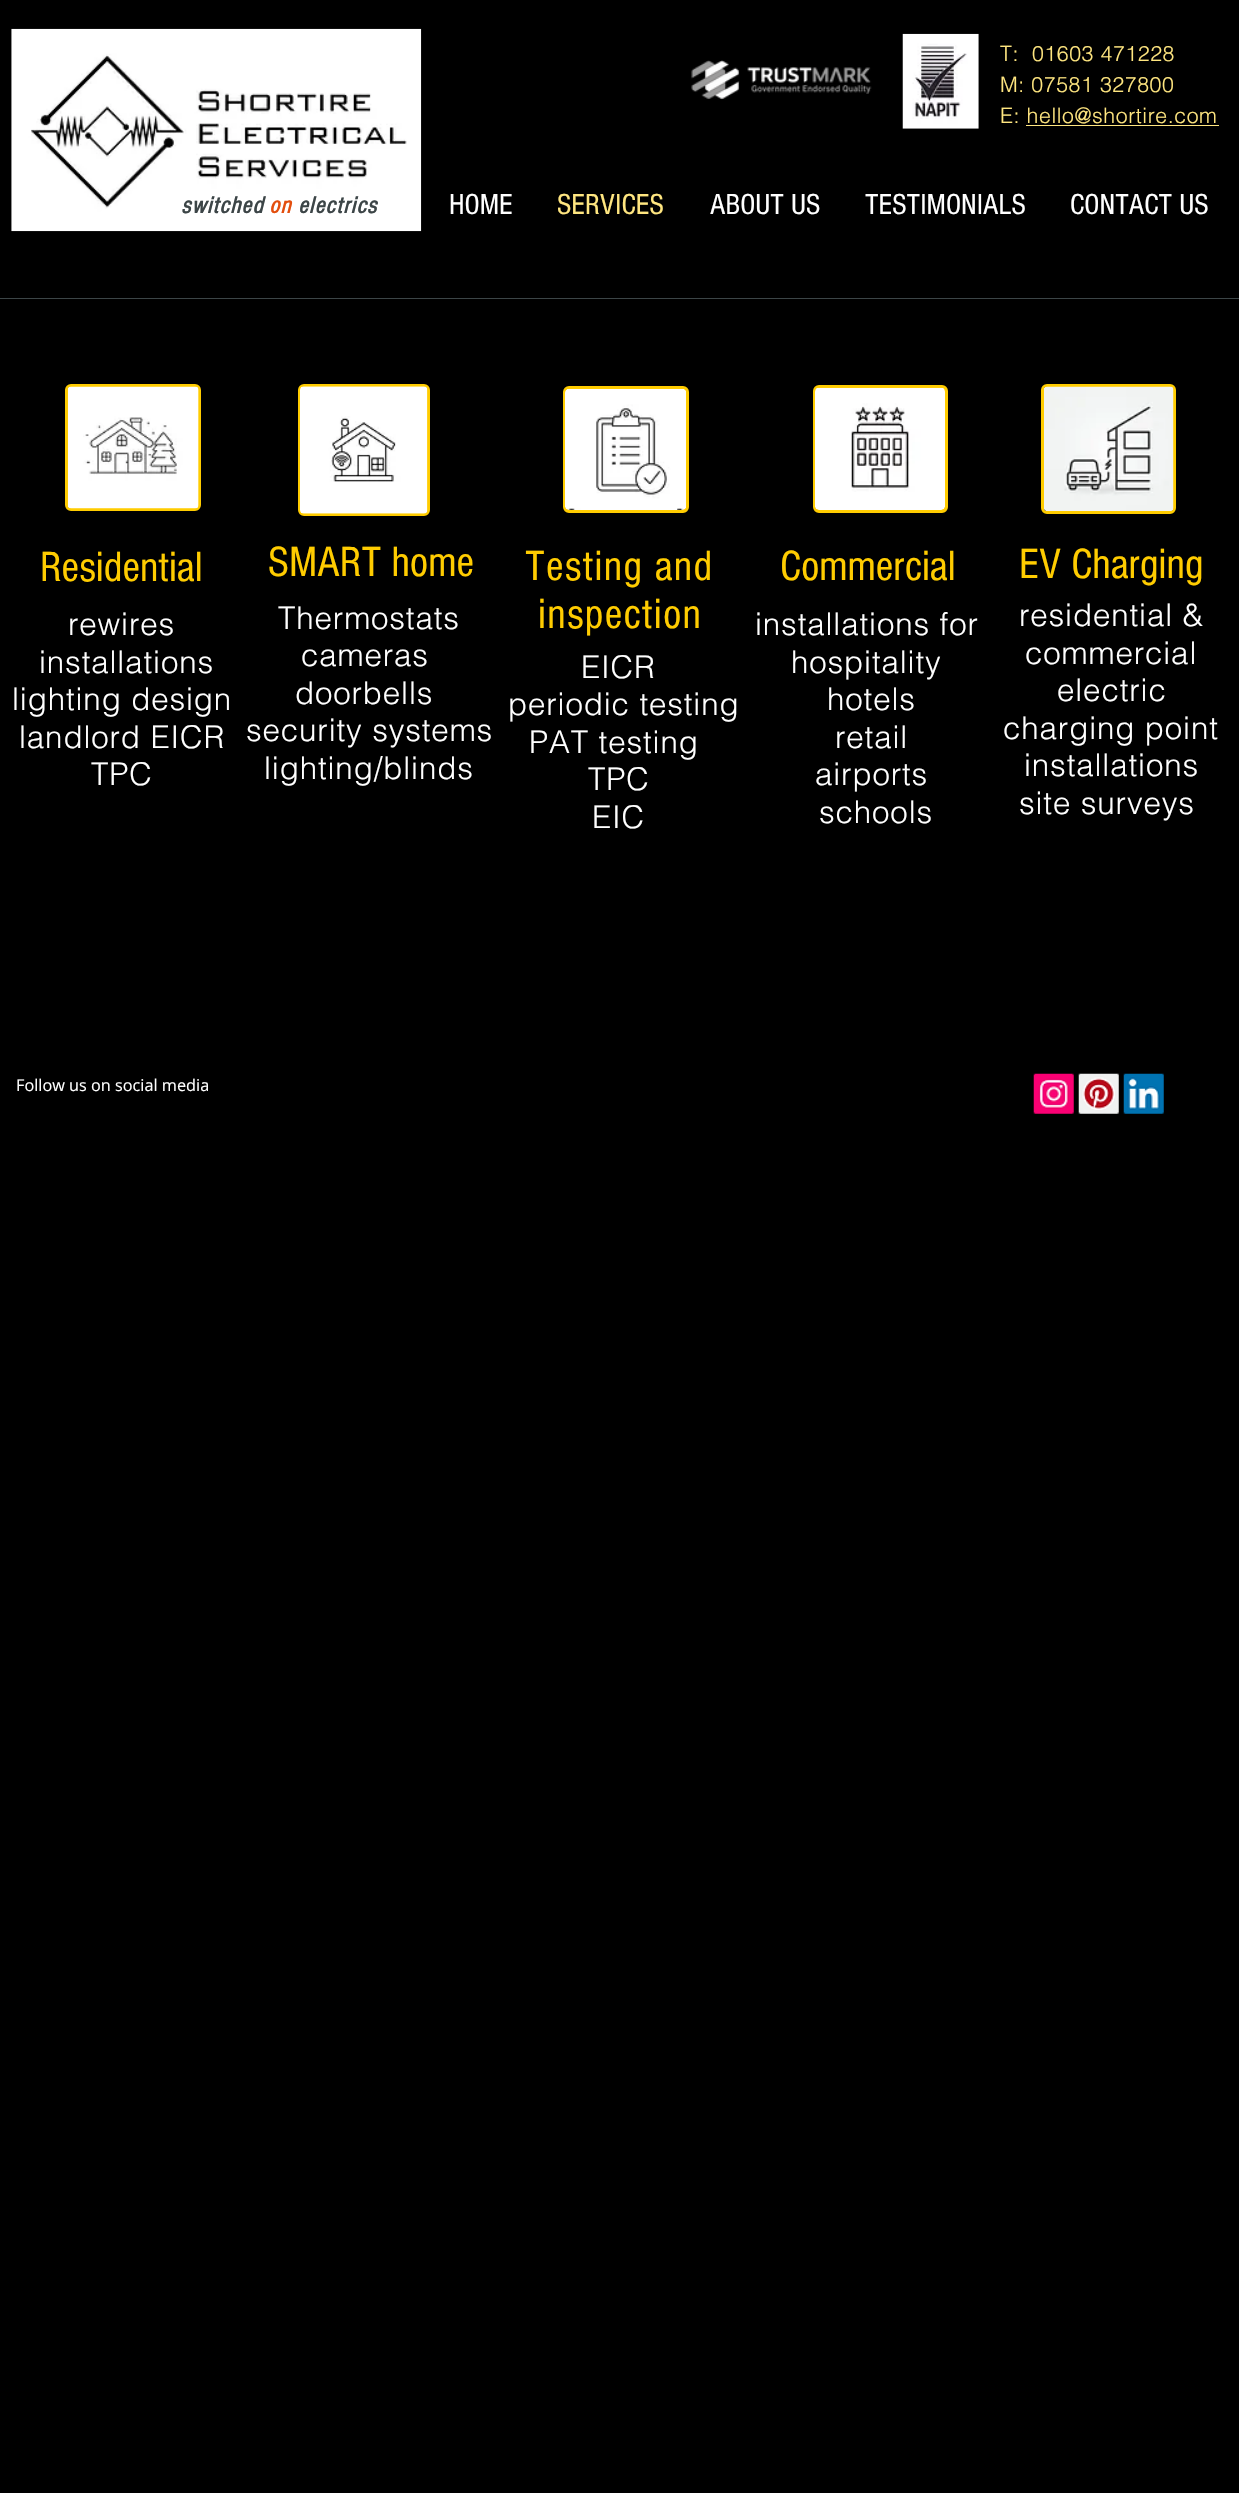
void draw(SkCanvas* canvas) {
    SkPaint paint;
    paint.setAntiAlias(true);
    auto face = [&](const char* family, int weight, float size, bool italic = false) {
        SkFontStyle style(weight, SkFontStyle::kNormal_Width,
            italic ? SkFontStyle::kItalic_Slant : SkFontStyle::kUpright_Slant);
        SkFont result(fontMgr->matchFamilyStyle(family, style), size);
        result.setSubpixel(true);
        return result;
    };
    auto write = [&](const char* s, float x, float y, const SkFont& font, SkColor color) {
        SkPaint ink(SkColor4f::FromColor(color));
        ink.setAntiAlias(true);
        canvas->drawString(s, x, y, font, ink);
    };
    auto writeSpaced = [&](const char* s, float x, float y, const SkFont& font, const SkPaint& ink, float letter, float word) {
        std::vector<SkGlyphID> glyphs(font.countText(s, strlen(s), SkTextEncoding::kUTF8));
        std::vector<float> xs(glyphs.size());
        font.textToGlyphs(s, strlen(s), SkTextEncoding::kUTF8, glyphs);
        font.getXPos(glyphs, xs, x);
        float extra = 0;
        for (size_t i = 0; i < glyphs.size(); i++) {
            xs[i] += extra;
            extra += letter + word * (glyphs[i] == font.unicharToGlyph(' '));
        }
        canvas->drawTextBlob(SkTextBlob::MakeFromPosHGlyphs(glyphs, xs, y, font), 0, 0, ink);
    };
    auto block = [&](float x, float y, float w, float h, SkColor color) {
        SkPaint ink(SkColor4f::FromColor(color));
        ink.setAntiAlias(true);
        canvas->drawRect(SkRect::MakeXYWH(x, y, w, h), ink);
    };
    auto paste = [&](const char* path, float x, float y, float w, float h) {
        auto image = SkImages::DeferredFromEncodedData(SkData::MakeFromFileName(path));
        canvas->drawImageRect(image, SkRect::MakeXYWH(x, y, w, h), SkSamplingOptions());
    };
    canvas->clear(SK_ColorBLACK);
    paste("pic1.png", 11, 28, 411, 204);
    paste("pic2.png", 691, 60, 181, 40);
    paste("pic3.png", 902, 33, 77, 96);
    auto kFont1 = face("helvetica", 300, 21.25f);
    paint.setColor(SkColorSetRGB(255, 230, 128));
    writeSpaced("T:  01603 471228", 1000, 61, kFont1, paint, 0.6f, 0);
    writeSpaced("M: 07581 327800", 1000, 92, kFont1, paint, 0.6f, 0);
    writeSpaced("E: hello@shortire.com", 1000, 123, kFont1, paint, 0.6f, 0);
    block(1026, 125, 193, 1, SkColorSetRGB(255, 230, 128));
    auto kFont2 = face("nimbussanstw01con", 700, 24, true);
    paint.setColor(SkColorSetRGB(60, 69, 71));
    writeSpaced("switched", 181, 213, kFont2, paint, 1.25f, 0);
    paint.setColor(SkColorSetRGB(227, 78, 14));
    writeSpaced("on", 269, 213, kFont2, paint, 1.25f, 0);
    paint.setColor(SkColorSetRGB(60, 69, 71));
    writeSpaced("electrics", 298, 213, kFont2, paint, 1.25f, 0);
    auto kFont3 = face("nimbussanstw01con", 400, 30);
    write("HOME", 449, 214, kFont3, SK_ColorWHITE);
    write("SERVICES", 557, 214, kFont3, SkColorSetRGB(255, 230, 128));
    write("ABOUT US", 710, 214, kFont3, SK_ColorWHITE);
    write("TESTIMONIALS", 865, 214, kFont3, SK_ColorWHITE);
    write("CONTACT US", 1070, 214, kFont3, SK_ColorWHITE);
    block(0, 298, 1239, 1, SkColorSetRGB(60, 69, 71));
    paint.setStyle(SkPaint::kStroke_Style);
    paint.setStrokeWidth(3);
    paint.setColor(SkColorSetRGB(255, 204, 0));
    canvas->drawRoundRect(SkRect::MakeXYWH(66.5f, 385.5f, 133, 124), 4.5f, 4.5f, paint);
    paste("pic4.png", 67, 386, 132, 123);
    auto kFont4 = face("nimbussanstw01con", 400, 43.75f);
    write("Residential", 40, 581, kFont4, SkColorSetRGB(255, 204, 0));
    auto kFont5 = face("helvetica", 300, 31.25f);
    paint.setStyle(SkPaint::kFill_Style);
    paint.setColor(SK_ColorWHITE);
    writeSpaced("rewires", 68, 635, kFont5, paint, 0.9f, 0);
    writeSpaced("installations", 39, 673, kFont5, paint, 0.9f, 0);
    writeSpaced("lighting design", 12, 710, kFont5, paint, 0.9f, 0);
    writeSpaced("landlord EICR", 19, 748, kFont5, paint, 0.9f, 0);
    writeSpaced("TPC", 91, 785, kFont5, paint, 0.9f, 0);
    paint.setStyle(SkPaint::kStroke_Style);
    paint.setColor(SkColorSetRGB(255, 204, 0));
    canvas->drawRoundRect(SkRect::MakeXYWH(299.5f, 385.5f, 129, 129), 4.5f, 4.5f, paint);
    paste("pic5.png", 300, 386, 128, 128);
    write("SMART home", 268, 576, kFont4, SkColorSetRGB(255, 204, 0));
    paint.setStyle(SkPaint::kFill_Style);
    paint.setColor(SK_ColorWHITE);
    writeSpaced("Thermostats", 278, 629, kFont5, paint, 0.9f, 0);
    writeSpaced("cameras", 301, 666, kFont5, paint, 0.9f, 0);
    writeSpaced("doorbells", 295, 704, kFont5, paint, 0.9f, 0);
    writeSpaced("security systems", 246, 741, kFont5, paint, 0.9f, 0);
    writeSpaced("lighting/blinds", 264, 779, kFont5, paint, 0.9f, 0);
    paint.setColor(SkColorSetRGB(255, 204, 0));
    canvas->drawRoundRect(SkRect::MakeXYWH(564.5f, 387.5f, 123, 124), 4.5f, 4.5f, paint);
    paint.setStyle(SkPaint::kStroke_Style);
    canvas->drawRoundRect(SkRect::MakeXYWH(564.5f, 387.5f, 123, 124), 4.5f, 4.5f, paint);
    paste("pic6.png", 565, 389, 121, 121);
    paint.setStyle(SkPaint::kFill_Style);
    writeSpaced("Testing and", 525, 580, kFont4, paint, 1.25f, 0);
    writeSpaced("inspection", 538, 628, kFont4, paint, 1.25f, 0);
    paint.setColor(SK_ColorWHITE);
    writeSpaced("EICR", 581, 678, kFont5, paint, 0.9f, 0);
    writeSpaced("periodic testing", 508, 715, kFont5, paint, 0.9f, 0);
    writeSpaced("PAT testing", 529, 753, kFont5, paint, 0.9f, 0);
    writeSpaced("TPC", 588, 790, kFont5, paint, 0.9f, 0);
    writeSpaced("EIC", 592, 828, kFont5, paint, 0.9f, 0);
    paint.setColor(SkColorSetRGB(255, 204, 0));
    canvas->drawRoundRect(SkRect::MakeXYWH(814.5f, 386.5f, 132, 125), 4.5f, 4.5f, paint);
    paint.setStyle(SkPaint::kStroke_Style);
    canvas->drawRoundRect(SkRect::MakeXYWH(814.5f, 386.5f, 132, 125), 4.5f, 4.5f, paint);
    paste("pic7.png", 815, 387, 130, 123);
    write("Commercial", 780, 580, kFont4, SkColorSetRGB(255, 204, 0));
    paint.setStyle(SkPaint::kFill_Style);
    paint.setColor(SK_ColorWHITE);
    writeSpaced("installations for", 755, 635, kFont5, paint, 0.9f, 0);
    writeSpaced("hospitality", 791, 673, kFont5, paint, 0.9f, 0);
    writeSpaced("hotels", 827, 710, kFont5, paint, 0.9f, 0);
    writeSpaced("retail", 835, 748, kFont5, paint, 0.9f, 0);
    writeSpaced("airports", 815, 785, kFont5, paint, 0.9f, 0);
    writeSpaced("schools", 819, 823, kFont5, paint, 0.9f, 0);
    paint.setStyle(SkPaint::kStroke_Style);
    paint.setColor(SkColorSetRGB(255, 204, 0));
    canvas->drawRoundRect(SkRect::MakeXYWH(1042.5f, 385.5f, 132, 127), 4.5f, 4.5f, paint);
    paste("pic8.png", 1044, 386, 130, 125);
    write("EV Charging", 1019, 578, kFont4, SkColorSetRGB(255, 204, 0));
    paint.setStyle(SkPaint::kFill_Style);
    paint.setColor(SK_ColorWHITE);
    writeSpaced("residential &", 1019, 626, kFont5, paint, 0.9f, 0);
    writeSpaced("commercial", 1025, 664, kFont5, paint, 0.9f, 0);
    writeSpaced("electric", 1057, 701, kFont5, paint, 0.9f, 0);
    writeSpaced("charging point", 1003, 739, kFont5, paint, 0.9f, 0);
    writeSpaced("installations", 1024, 776, kFont5, paint, 0.9f, 0);
    writeSpaced("site surveys", 1019, 814, kFont5, paint, 0.9f, 0);
    auto kFont6 = face("Open Sans", 400, 16.25f);
    write("Follow us on social media", 16, 1091, kFont6, SK_ColorWHITE);
    paste("pic9.png", 1033, 1073, 41, 41);
    paste("pic10.png", 1078, 1073, 41, 41);
    paste("pic11.png", 1123, 1073, 41, 41);
}
